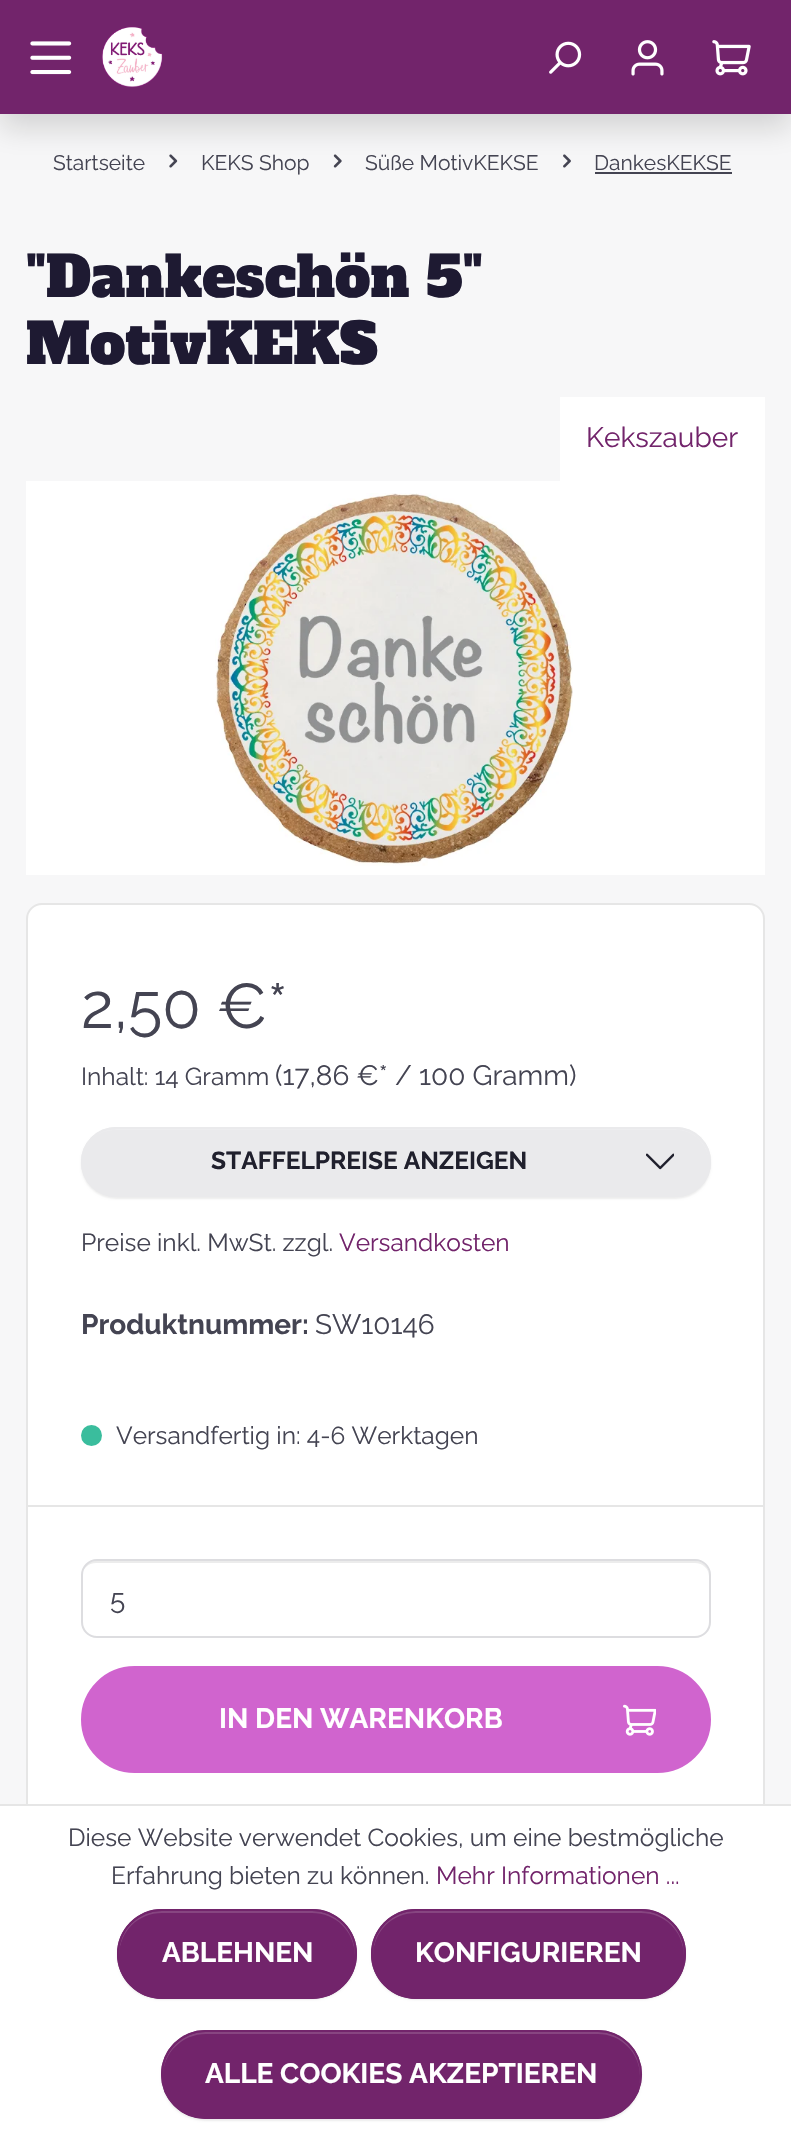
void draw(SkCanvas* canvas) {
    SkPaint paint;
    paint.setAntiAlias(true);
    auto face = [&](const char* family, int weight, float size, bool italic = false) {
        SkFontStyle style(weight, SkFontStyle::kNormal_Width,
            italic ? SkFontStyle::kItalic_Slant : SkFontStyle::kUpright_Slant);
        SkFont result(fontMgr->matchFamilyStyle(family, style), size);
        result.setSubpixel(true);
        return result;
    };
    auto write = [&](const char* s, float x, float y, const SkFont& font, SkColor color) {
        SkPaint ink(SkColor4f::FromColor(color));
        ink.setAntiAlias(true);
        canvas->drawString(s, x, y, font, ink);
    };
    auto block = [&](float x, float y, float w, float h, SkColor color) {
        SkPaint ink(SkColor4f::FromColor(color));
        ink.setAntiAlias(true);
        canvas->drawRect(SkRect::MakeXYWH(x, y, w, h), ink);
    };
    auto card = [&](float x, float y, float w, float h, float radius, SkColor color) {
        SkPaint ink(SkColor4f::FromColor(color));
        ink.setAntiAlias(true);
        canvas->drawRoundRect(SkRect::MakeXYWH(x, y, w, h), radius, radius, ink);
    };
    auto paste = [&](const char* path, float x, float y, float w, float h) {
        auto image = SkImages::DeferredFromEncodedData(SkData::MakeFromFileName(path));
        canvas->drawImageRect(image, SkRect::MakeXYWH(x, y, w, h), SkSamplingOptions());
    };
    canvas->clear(SkColorSetRGB(247, 247, 248));
    paste("pic6.png", 169, 154, 9, 14);
    paste("pic7.png", 333, 154, 9, 14);
    paste("pic8.png", 563, 154, 8, 14);
    paint.setColor(SkColorSetARGB(38, 0, 0, 0));
    paint.setMaskFilter(SkMaskFilter::MakeBlur(kNormal_SkBlurStyle, 14));
    canvas->drawRect(SkRect::MakeXYWH(0, 14, 791, 114), paint);
    paint.setMaskFilter(nullptr);
    block(0, 0, 791, 114, SkColorSetRGB(114, 36, 107));
    paste("pic1.png", 30, 41, 42, 34);
    paste("pic2.png", 101, 26, 62, 62);
    paste("pic3.png", 549, 41, 33, 33);
    paste("pic4.png", 631, 40, 33, 36);
    paste("pic5.png", 712, 40, 39, 36);
    auto kFont1 = face("Raleway", 400, 21);
    write("Startseite", 53, 170, kFont1, SkColorSetRGB(68, 68, 82));
    write("KEKS Shop", 201, 170, kFont1, SkColorSetRGB(68, 68, 82));
    write("Süße MotivKEKSE", 365, 170, kFont1, SkColorSetRGB(68, 68, 82));
    write("DankesKEKSE", 594, 170, kFont1, SkColorSetRGB(68, 68, 82));
    block(595, 172, 137, 2, SkColorSetRGB(68, 68, 82));
    auto kFont2 = face("Alfa Slab One", 400, 56);
    write("\"Dankeschön 5\"", 26, 297, kFont2, SkColorSetRGB(30, 26, 50));
    write("MotivKEKS", 26, 364, kFont2, SkColorSetRGB(30, 26, 50));
    block(560, 397, 205, 84, SK_ColorWHITE);
    auto kFont3 = face("Raleway", 400, 28);
    write("Kekszauber", 586, 447, kFont3, SkColorSetRGB(114, 36, 107));
    block(26, 481, 739, 394, SK_ColorWHITE);
    paste("pic9.png", 215, 493, 358, 373);
    paint.setColor(SK_ColorWHITE);
    canvas->drawRoundRect(SkRect::MakeXYWH(27, 904, 737, 922), 15, 15, paint);
    paint.setStyle(SkPaint::kStroke_Style);
    paint.setStrokeWidth(2);
    paint.setColor(SkColorSetRGB(230, 230, 230));
    canvas->drawRoundRect(SkRect::MakeXYWH(27, 904, 737, 922), 15, 15, paint);
    auto kFont4 = face("Raleway", 400, 63);
    write("2,50 €*", 81, 1028, kFont4, SkColorSetRGB(68, 68, 82));
    auto kFont5 = face("Raleway", 400, 24.5f);
    write("Inhalt: 14 Gramm", 81, 1085, kFont5, SkColorSetRGB(68, 68, 82));
    write("(17,86 €* / 100 Gramm)", 275, 1085, kFont3, SkColorSetRGB(68, 68, 82));
    paint.setStyle(SkPaint::kFill_Style);
    paint.setColor(SkColorSetARGB(18, 0, 0, 0));
    paint.setMaskFilter(SkMaskFilter::MakeBlur(kNormal_SkBlurStyle, 1));
    canvas->drawRoundRect(SkRect::MakeXYWH(81, 1129, 630, 70), 35, 35, paint);
    paint.setMaskFilter(nullptr);
    card(81, 1127, 630, 70, 35, SkColorSetRGB(234, 234, 236));
    paint.setColor(SkColorSetRGB(237, 237, 239));
    canvas->drawPath(SkPathBuilder().moveTo(116, 1130).lineTo(676, 1130).cubicTo(694, 1130, 708, 1144, 709, 1163).cubicTo(710, 1145, 694, 1129, 676, 1129).lineTo(115, 1129).cubicTo(97, 1129, 81, 1145, 82, 1163).cubicTo(83, 1144, 97, 1130, 116, 1130).close().detach(), paint);
    paint.setStyle(SkPaint::kStroke_Style);
    paint.setColor(SkColorSetRGB(234, 234, 236));
    canvas->drawRoundRect(SkRect::MakeXYWH(82, 1128, 628, 68), 34, 34, paint);
    auto kFont6 = face("Raleway", 700, 24.5f);
    write("STAFFELPREISE ANZEIGEN", 211, 1169, kFont6, SkColorSetRGB(32, 32, 45));
    paste("pic10.png", 646, 1153, 28, 17);
    write("Preise inkl. MwSt. zzgl.", 81, 1251, kFont5, SkColorSetRGB(68, 68, 82));
    write("Versandkosten", 339, 1251, kFont5, SkColorSetRGB(114, 36, 107));
    auto kFont7 = face("Raleway", 700, 28);
    write("Produktnummer:", 81, 1334, kFont7, SkColorSetRGB(68, 68, 82));
    write("SW10146", 315, 1334, kFont3, SkColorSetRGB(68, 68, 82));
    paint.setStyle(SkPaint::kFill_Style);
    paint.setColor(SkColorSetRGB(58, 189, 157));
    canvas->drawCircle(91.5f, 1435.5f, 10.5f, paint);
    write("Versandfertig in: 4-6 Werktagen", 116, 1444, kFont5, SkColorSetRGB(68, 68, 82));
    block(28, 1505, 735, 2, SkColorSetRGB(230, 230, 230));
    paint.setColor(SkColorSetRGB(236, 236, 236));
    canvas->drawPath(SkPathBuilder().moveTo(96, 1563).lineTo(695, 1563).cubicTo(703, 1563, 709, 1569, 709, 1576).lineTo(709, 1575).cubicTo(709, 1567, 703, 1561, 695, 1561).lineTo(96, 1561).cubicTo(88, 1561, 82, 1567, 82, 1575).lineTo(82, 1576).cubicTo(82, 1569, 88, 1563, 96, 1563).close().detach(), paint);
    paint.setStyle(SkPaint::kStroke_Style);
    paint.setColor(SkColorSetRGB(221, 221, 224));
    canvas->drawRoundRect(SkRect::MakeXYWH(82, 1560, 628, 77), 15, 15, paint);
    write("5", 110, 1609, kFont3, SkColorSetRGB(68, 68, 82));
    paint.setStyle(SkPaint::kFill_Style);
    paint.setColor(SkColorSetRGB(208, 100, 206));
    canvas->drawRoundRect(SkRect::MakeXYWH(82, 1667, 628, 105), 52.5f, 52.5f, paint);
    paint.setStyle(SkPaint::kStroke_Style);
    canvas->drawRoundRect(SkRect::MakeXYWH(82, 1667, 628, 105), 52.5f, 52.5f, paint);
    write("IN DEN WARENKORB", 219, 1728, kFont7, SK_ColorWHITE);
    paste("pic11.png", 623, 1704, 33, 32);
    block(0, 1806, 791, 344, SK_ColorWHITE);
    block(0, 1804, 791, 2, SkColorSetRGB(230, 230, 230));
    write("Diese Website verwendet Cookies, um eine bestmögliche", 68, 1846, kFont5, SkColorSetRGB(68, 68, 82));
    write("Erfahrung bieten zu können.", 111, 1884, kFont5, SkColorSetRGB(68, 68, 82));
    write("Mehr Informationen ...", 436, 1884, kFont5, SkColorSetRGB(114, 36, 107));
    paint.setStyle(SkPaint::kFill_Style);
    paint.setColor(SkColorSetARGB(18, 0, 0, 0));
    paint.setMaskFilter(SkMaskFilter::MakeBlur(kNormal_SkBlurStyle, 1));
    canvas->drawRoundRect(SkRect::MakeXYWH(117, 1911, 240, 89), 44.5f, 44.5f, paint);
    paint.setMaskFilter(nullptr);
    card(117, 1909, 240, 90, 45, SkColorSetRGB(114, 36, 107));
    paint.setColor(SkColorSetRGB(135, 69, 129));
    canvas->drawPath(SkPathBuilder().moveTo(162, 1913).lineTo(312, 1913).cubicTo(336, 1913, 354, 1931, 355, 1955).lineTo(355, 1954).cubicTo(355, 1930, 336, 1911, 312, 1911).lineTo(162, 1911).cubicTo(138, 1911, 119, 1930, 119, 1954).lineTo(119, 1955).cubicTo(120, 1931, 138, 1913, 162, 1913).close().detach(), paint);
    paint.setStyle(SkPaint::kStroke_Style);
    paint.setColor(SkColorSetRGB(114, 36, 107));
    canvas->drawRoundRect(SkRect::MakeXYWH(118, 1910, 238, 88), 44, 44, paint);
    write("ABLEHNEN", 162, 1962, kFont7, SK_ColorWHITE);
    paint.setStyle(SkPaint::kFill_Style);
    paint.setColor(SkColorSetARGB(18, 0, 0, 0));
    paint.setMaskFilter(SkMaskFilter::MakeBlur(kNormal_SkBlurStyle, 1));
    canvas->drawRoundRect(SkRect::MakeXYWH(371, 1911, 315, 89), 44.5f, 44.5f, paint);
    paint.setMaskFilter(nullptr);
    card(371, 1909, 315, 90, 45, SkColorSetRGB(114, 36, 107));
    paint.setColor(SkColorSetRGB(135, 69, 129));
    canvas->drawPath(SkPathBuilder().moveTo(416, 1913).lineTo(641, 1913).cubicTo(665, 1913, 683, 1931, 684, 1955).lineTo(684, 1954).cubicTo(684, 1930, 665, 1911, 641, 1911).lineTo(416, 1911).cubicTo(392, 1911, 373, 1930, 373, 1954).lineTo(373, 1955).cubicTo(374, 1931, 392, 1913, 416, 1913).close().detach(), paint);
    paint.setStyle(SkPaint::kStroke_Style);
    paint.setColor(SkColorSetRGB(114, 36, 107));
    canvas->drawRoundRect(SkRect::MakeXYWH(372, 1910, 313, 88), 44, 44, paint);
    write("KONFIGURIEREN", 415, 1962, kFont7, SK_ColorWHITE);
    paint.setStyle(SkPaint::kFill_Style);
    paint.setColor(SkColorSetARGB(18, 0, 0, 0));
    paint.setMaskFilter(SkMaskFilter::MakeBlur(kNormal_SkBlurStyle, 1));
    canvas->drawRoundRect(SkRect::MakeXYWH(161, 2032, 481, 89), 44.5f, 44.5f, paint);
    paint.setMaskFilter(nullptr);
    card(161, 2030, 481, 89, 44.5f, SkColorSetRGB(114, 36, 107));
    paint.setColor(SkColorSetRGB(135, 69, 129));
    canvas->drawPath(SkPathBuilder().moveTo(206, 2034).lineTo(598, 2034).cubicTo(621, 2034, 640, 2053, 640, 2076).cubicTo(640, 2086, 637, 2095, 632, 2102).cubicTo(637, 2095, 641, 2085, 641, 2075).cubicTo(641, 2051, 622, 2032, 598, 2032).lineTo(206, 2032).cubicTo(182, 2032, 163, 2051, 163, 2075).lineTo(163, 2076).cubicTo(163, 2053, 182, 2034, 206, 2034).close().detach(), paint);
    paint.setStyle(SkPaint::kStroke_Style);
    paint.setColor(SkColorSetRGB(114, 36, 107));
    canvas->drawRoundRect(SkRect::MakeXYWH(162, 2031, 479, 87), 43.5f, 43.5f, paint);
    write("ALLE COOKIES AKZEPTIEREN", 205, 2083, kFont7, SK_ColorWHITE);
}
